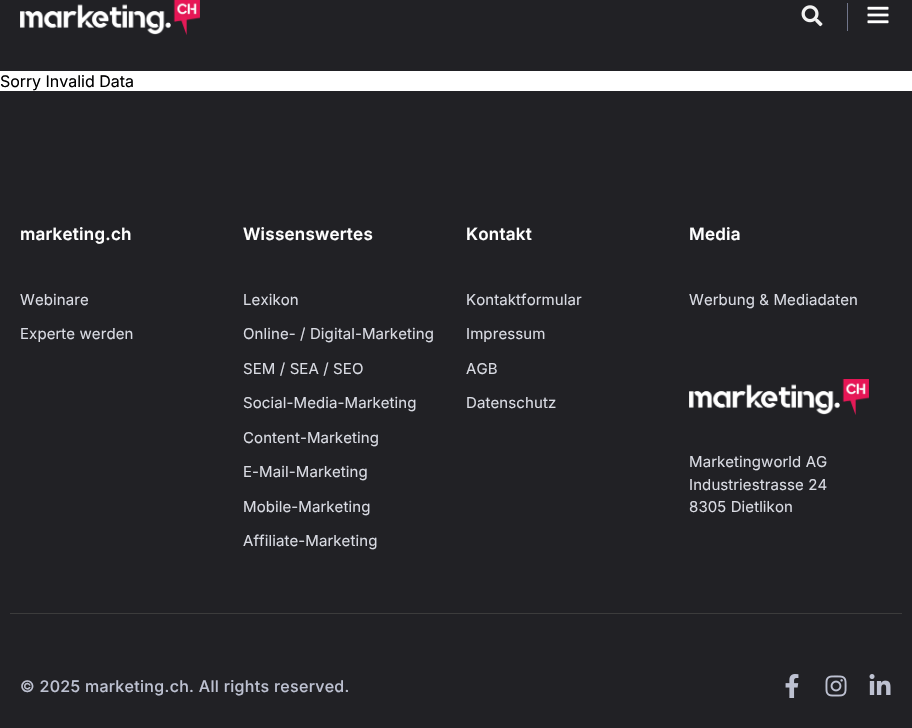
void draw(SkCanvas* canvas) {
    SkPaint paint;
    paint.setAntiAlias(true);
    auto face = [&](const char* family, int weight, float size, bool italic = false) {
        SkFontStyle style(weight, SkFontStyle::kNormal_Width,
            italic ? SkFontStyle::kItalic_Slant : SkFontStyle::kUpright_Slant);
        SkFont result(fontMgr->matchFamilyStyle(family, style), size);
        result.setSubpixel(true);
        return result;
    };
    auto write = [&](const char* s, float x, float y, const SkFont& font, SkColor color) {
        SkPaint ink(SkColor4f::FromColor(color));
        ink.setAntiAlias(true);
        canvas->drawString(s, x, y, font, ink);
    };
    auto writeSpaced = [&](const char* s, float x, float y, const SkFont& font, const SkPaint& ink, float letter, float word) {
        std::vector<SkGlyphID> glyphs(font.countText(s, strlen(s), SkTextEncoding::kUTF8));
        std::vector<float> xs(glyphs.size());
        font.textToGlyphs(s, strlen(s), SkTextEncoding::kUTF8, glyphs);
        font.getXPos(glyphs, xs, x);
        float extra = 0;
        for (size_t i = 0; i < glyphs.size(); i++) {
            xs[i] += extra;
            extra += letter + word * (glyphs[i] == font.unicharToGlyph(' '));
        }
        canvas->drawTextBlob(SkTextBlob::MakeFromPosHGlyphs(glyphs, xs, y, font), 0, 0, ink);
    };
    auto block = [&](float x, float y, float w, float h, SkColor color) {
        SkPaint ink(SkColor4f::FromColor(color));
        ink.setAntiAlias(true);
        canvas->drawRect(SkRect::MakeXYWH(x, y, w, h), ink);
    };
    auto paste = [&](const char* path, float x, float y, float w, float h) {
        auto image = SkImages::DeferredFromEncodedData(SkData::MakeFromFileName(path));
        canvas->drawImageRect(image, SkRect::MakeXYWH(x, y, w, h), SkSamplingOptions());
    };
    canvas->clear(SK_ColorWHITE);
    block(0, 0, 912, 71, SkColorSetRGB(33, 33, 37));
    paste("pic1.png", 20, 0, 180, 35);
    paste("pic2.png", 801, 5, 22, 22);
    block(847, 3, 1, 28, SkColorSetRGB(113, 118, 139));
    paste("pic3.png", 867, 6, 22, 18);
    auto kFont1 = face("Inter", 400, 16);
    write("Sorry Invalid Data", 0, 87, kFont1, SK_ColorBLACK);
    block(0, 91, 912, 637, SkColorSetRGB(33, 33, 37));
    auto kFont2 = face("Inter", 600, 17);
    paint.setColor(SK_ColorWHITE);
    writeSpaced("marketing.ch", 20, 240, kFont2, paint, 0.25f, 0);
    auto kFont3 = face("Inter", 400, 15);
    paint.setColor(SkColorSetRGB(217, 219, 227));
    writeSpaced("Webinare", 20, 305, kFont3, paint, 0.1f, 0);
    writeSpaced("Experte werden", 20, 339, kFont3, paint, 0.1f, 0);
    paint.setColor(SK_ColorWHITE);
    writeSpaced("Wissenswertes", 243, 240, kFont2, paint, 0.25f, 0);
    paint.setColor(SkColorSetRGB(217, 219, 227));
    writeSpaced("Lexikon", 243, 305, kFont3, paint, 0.1f, 0);
    writeSpaced("Online- / Digital-Marketing", 243, 339, kFont3, paint, 0.1f, 0);
    writeSpaced("SEM / SEA / SEO", 243, 374, kFont3, paint, 0.1f, 0);
    writeSpaced("Social-Media-Marketing", 243, 408, kFont3, paint, 0.1f, 0);
    writeSpaced("Content-Marketing", 243, 443, kFont3, paint, 0.1f, 0);
    writeSpaced("E-Mail-Marketing", 243, 477, kFont3, paint, 0.1f, 0);
    writeSpaced("Mobile-Marketing", 243, 512, kFont3, paint, 0.1f, 0);
    writeSpaced("Affiliate-Marketing", 243, 546, kFont3, paint, 0.1f, 0);
    paint.setColor(SK_ColorWHITE);
    writeSpaced("Kontakt", 466, 240, kFont2, paint, 0.25f, 0);
    paint.setColor(SkColorSetRGB(217, 219, 227));
    writeSpaced("Kontaktformular", 466, 305, kFont3, paint, 0.1f, 0);
    writeSpaced("Impressum", 466, 339, kFont3, paint, 0.1f, 0);
    writeSpaced("AGB", 466, 374, kFont3, paint, 0.1f, 0);
    writeSpaced("Datenschutz", 466, 408, kFont3, paint, 0.1f, 0);
    paint.setColor(SK_ColorWHITE);
    writeSpaced("Media", 689, 240, kFont2, paint, 0.25f, 0);
    paint.setColor(SkColorSetRGB(217, 219, 227));
    writeSpaced("Werbung & Mediadaten", 689, 305, kFont3, paint, 0.1f, 0);
    paste("pic4.png", 689, 379, 180, 36);
    writeSpaced("Marketingworld AG", 689, 467, kFont3, paint, 0.1f, 0);
    writeSpaced("Industriestrasse 24", 689, 490, kFont3, paint, 0.1f, 0);
    writeSpaced("8305 Dietlikon", 689, 512, kFont3, paint, 0.1f, 0);
    block(10, 613, 892, 1, SkColorSetRGB(60, 60, 60));
    auto kFont4 = face("Inter", 500, 16);
    paint.setColor(SkColorSetRGB(189, 193, 209));
    writeSpaced("© 2025 marketing.ch. All rights reserved.", 20, 692, kFont4, paint, 0.3f, 0);
    paste("pic5.png", 785, 674, 14, 24);
    paste("pic6.png", 825, 675, 22, 22);
    paste("pic7.png", 869, 674, 22, 21);
}
